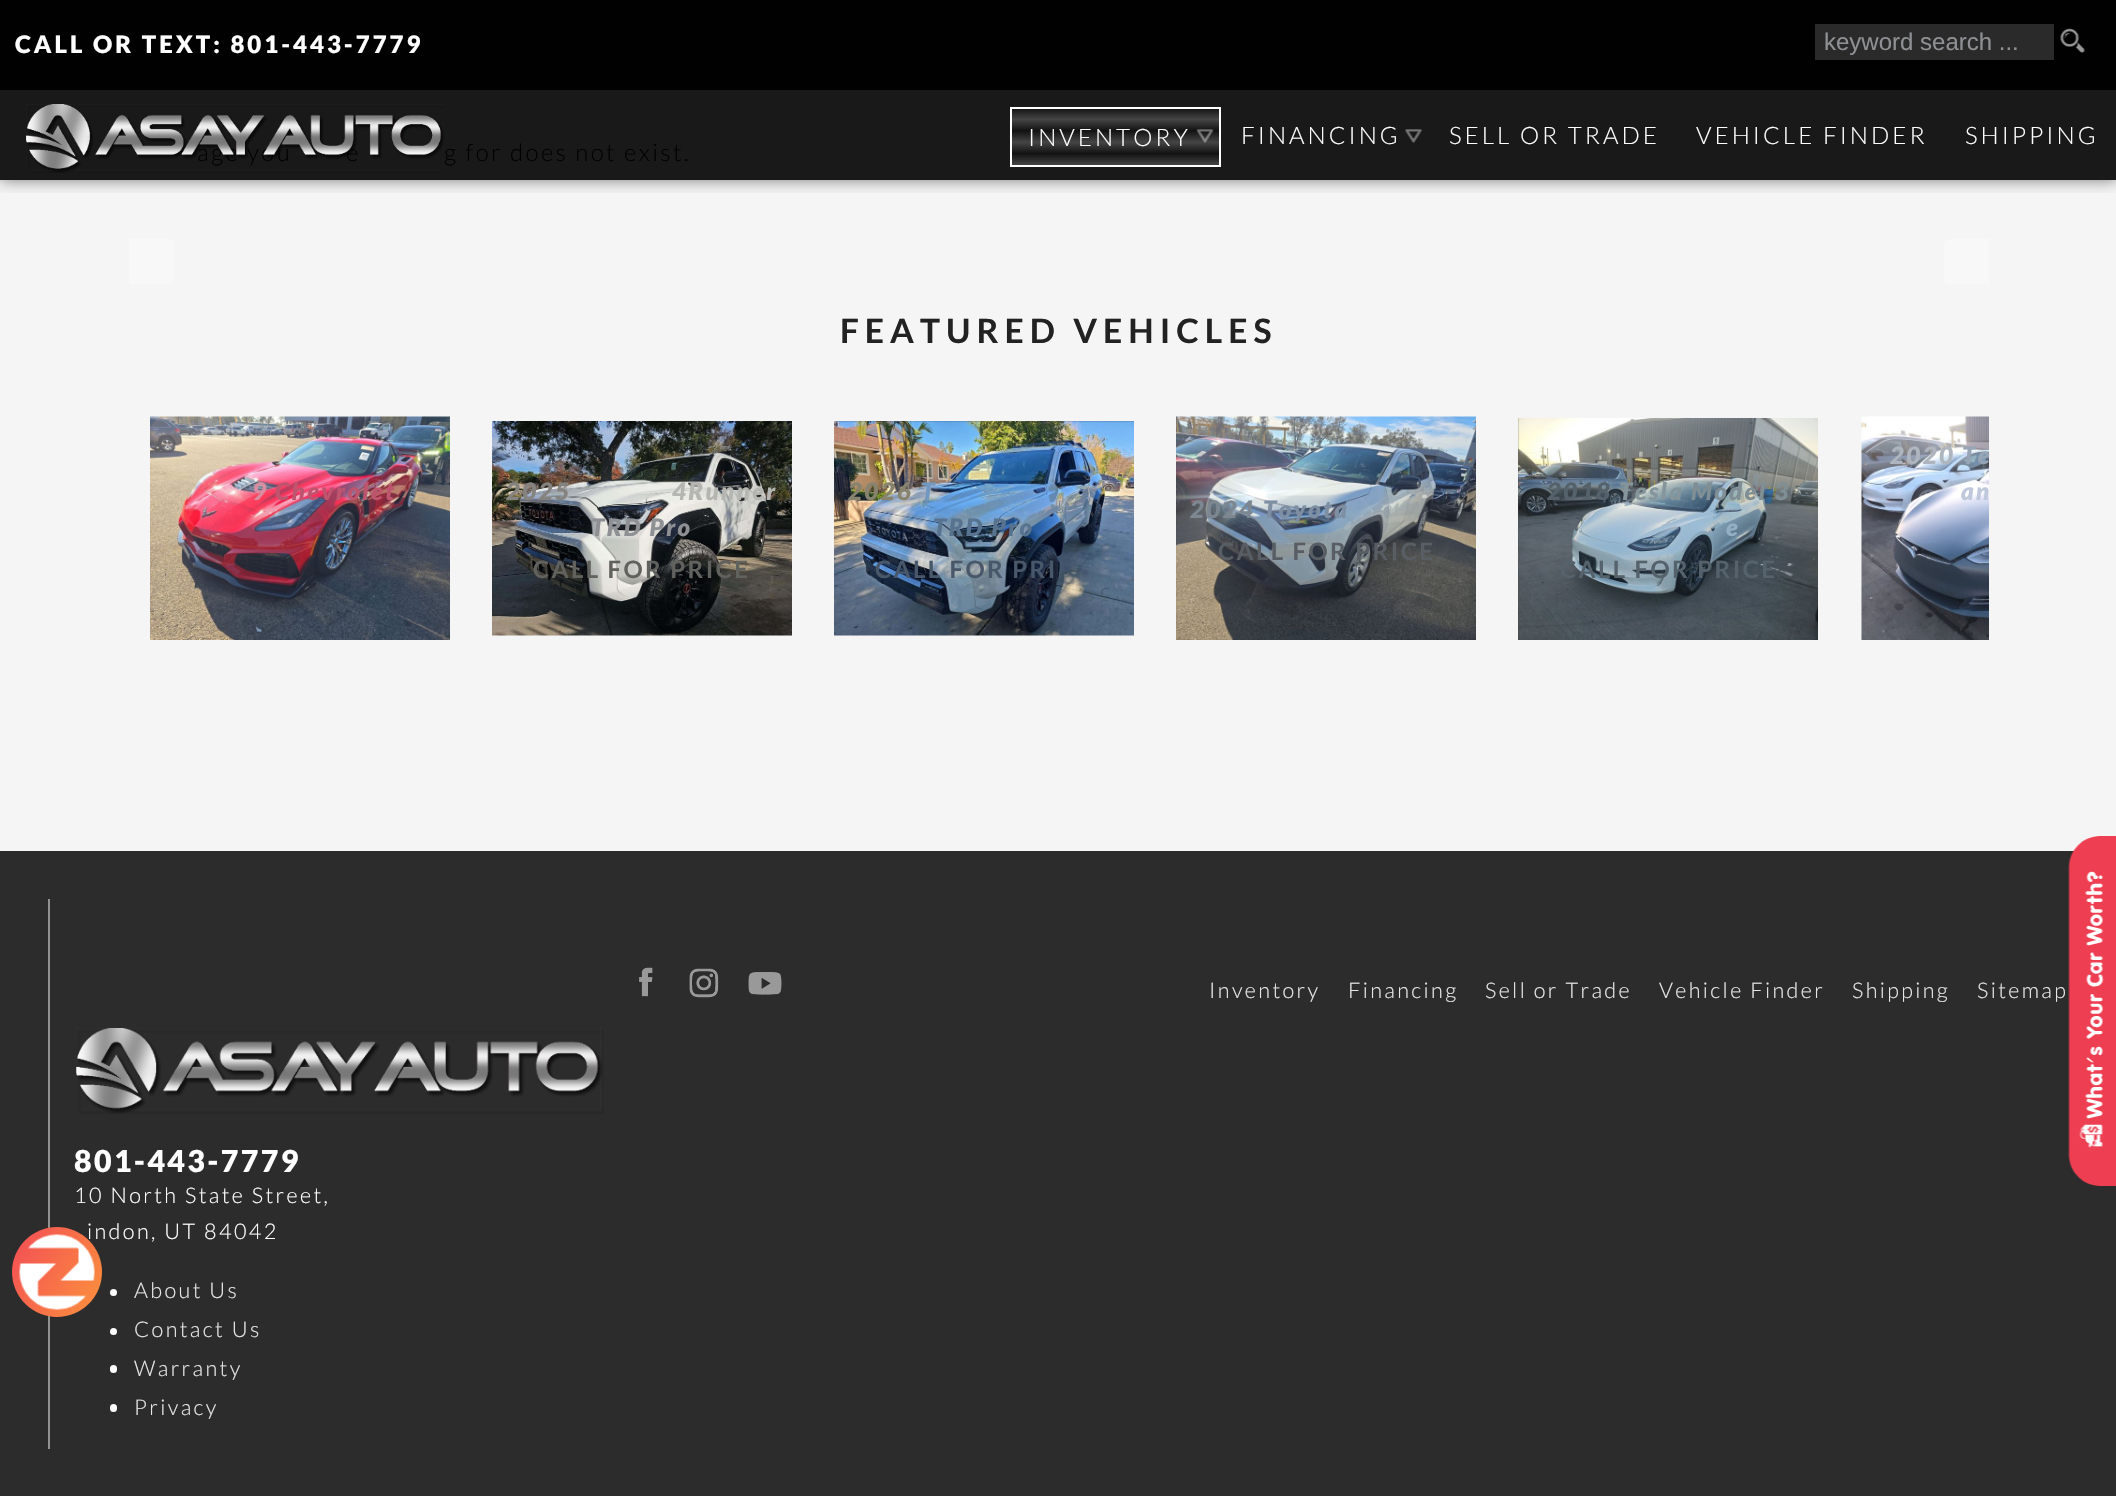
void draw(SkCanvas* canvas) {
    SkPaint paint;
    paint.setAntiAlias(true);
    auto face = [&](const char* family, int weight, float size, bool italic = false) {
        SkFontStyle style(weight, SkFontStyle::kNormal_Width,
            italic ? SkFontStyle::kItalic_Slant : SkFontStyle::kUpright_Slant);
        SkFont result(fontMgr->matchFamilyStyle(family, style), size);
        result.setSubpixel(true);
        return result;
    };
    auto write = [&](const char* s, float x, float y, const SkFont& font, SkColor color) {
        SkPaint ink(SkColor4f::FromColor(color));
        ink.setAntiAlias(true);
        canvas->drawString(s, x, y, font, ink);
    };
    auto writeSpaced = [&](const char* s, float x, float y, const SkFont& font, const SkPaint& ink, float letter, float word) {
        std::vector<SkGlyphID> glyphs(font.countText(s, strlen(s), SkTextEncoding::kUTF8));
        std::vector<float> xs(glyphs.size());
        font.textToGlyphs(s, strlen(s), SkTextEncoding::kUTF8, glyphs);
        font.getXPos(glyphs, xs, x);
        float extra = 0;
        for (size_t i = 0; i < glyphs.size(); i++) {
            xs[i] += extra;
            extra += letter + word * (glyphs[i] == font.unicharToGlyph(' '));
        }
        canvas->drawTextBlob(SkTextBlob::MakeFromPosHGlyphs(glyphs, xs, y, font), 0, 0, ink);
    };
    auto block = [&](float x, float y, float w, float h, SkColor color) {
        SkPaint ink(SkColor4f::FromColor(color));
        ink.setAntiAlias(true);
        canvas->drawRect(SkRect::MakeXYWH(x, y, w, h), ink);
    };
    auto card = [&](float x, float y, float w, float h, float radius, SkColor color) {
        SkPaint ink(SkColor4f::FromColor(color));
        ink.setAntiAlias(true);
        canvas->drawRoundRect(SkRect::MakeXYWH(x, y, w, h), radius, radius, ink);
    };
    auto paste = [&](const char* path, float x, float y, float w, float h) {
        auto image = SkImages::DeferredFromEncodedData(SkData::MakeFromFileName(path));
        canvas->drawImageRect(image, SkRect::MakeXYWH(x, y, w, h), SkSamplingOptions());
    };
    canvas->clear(SkColorSetRGB(245, 245, 245));
    block(0, 90, 2116, 90, SkColorSetRGB(25, 25, 25));
    canvas->save();
    canvas->clipRect(SkRect::MakeXYWH(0, 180, 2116, 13));
    paint.setColor(SkColorSetARGB(128, 0, 0, 0));
    paint.setMaskFilter(SkMaskFilter::MakeBlur(kNormal_SkBlurStyle, 7.5f));
    canvas->drawRect(SkRect::MakeXYWH(0, 0, 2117, 180), paint);
    paint.setMaskFilter(nullptr);
    canvas->restore();
    block(0, 0, 2116, 90, SkColorSetRGB(1, 1, 1));
    auto kFont1 = face("Lato", 900, 24);
    paint.setColor(SkColorSetRGB(254, 254, 254));
    writeSpaced("CALL OR TEXT: 801-443-7779", 15, 53, kFont1, paint, 3, 0);
    block(1815, 24, 239, 36, SkColorSetRGB(42, 42, 42));
    auto kFont2 = face("Liberation Sans", 400, 24);
    write("keyword search ...", 1824, 50, kFont2, SkColorSetRGB(142, 144, 147));
    paste("pic1.png", 2060, 28, 25, 25);
    auto kFont3 = face("Lato", 300, 24);
    paint.setColor(SkColorSetRGB(1, 1, 1));
    writeSpaced("age you", 197, 161, kFont3, paint, 2.4f, 0);
    writeSpaced("e", 346, 161, kFont3, paint, 2.4f, 0);
    paste("pic2.png", 26, 104, 418, 69);
    {
        const SkColor colors[] = {SkColorSetRGB(18, 18, 18), SkColorSetRGB(69, 69, 69), SkColorSetRGB(18, 18, 18), SkColorSetRGB(69, 69, 69), SkColorSetRGB(18, 18, 18), SkColorSetRGB(69, 69, 69)};
        const float stops[] = {0, 0.2f, 0.4f, 0.6f, 0.8f, 1};
        const SkPoint ends[] = {{1115, 108}, {1115, 165}};
        paint.setShader(SkGradientShader::MakeLinear(ends, colors, stops, 6, SkTileMode::kClamp));
        paint.setAlpha(255);
    }
    canvas->drawRect(SkRect::MakeXYWH(1012, 110, 207, 55), paint);
    paint.setStyle(SkPaint::kStroke_Style);
    paint.setStrokeWidth(2);
    paint.setShader(nullptr);
    paint.setColor(SK_ColorWHITE);
    canvas->drawRect(SkRect::MakeXYWH(1011, 108, 209, 58), paint);
    paint.setStyle(SkPaint::kFill_Style);
    paint.setColor(SkColorSetRGB(254, 254, 254));
    writeSpaced("INVENTORY", 1028, 146, kFont3, paint, 3, 0);
    paste("pic3.png", 1196, 129, 18, 14);
    writeSpaced("FINANCING", 1241, 144, kFont3, paint, 3, 0);
    paste("pic4.png", 1405, 129, 17, 14);
    writeSpaced("SELL OR TRADE", 1449, 144, kFont3, paint, 3, 0);
    writeSpaced("VEHICLE FINDER", 1696, 144, kFont3, paint, 3, 0);
    writeSpaced("SHIPPING", 1965, 144, kFont3, paint, 3, 0);
    paint.setColor(SkColorSetRGB(1, 1, 1));
    writeSpaced("g for does not exist.", 444, 161, kFont3, paint, 2.4f, 0);
    paint.setColor(SkColorSetRGB(248, 248, 248));
    canvas->drawPath(SkPathBuilder().moveTo(129, 239).lineTo(168, 239).cubicTo(171.5f, 239, 174, 241.5f, 174, 245).lineTo(174, 278).cubicTo(174, 281.5f, 171.5f, 284, 168, 284).lineTo(129, 284).close().detach(), paint);
    canvas->drawPath(SkPathBuilder().moveTo(1950, 239).lineTo(1989, 239).lineTo(1989, 284).lineTo(1950, 284).cubicTo(1946.5f, 284, 1944, 281.5f, 1944, 278).lineTo(1944, 245).cubicTo(1944, 241.5f, 1946.5f, 239, 1950, 239).close().detach(), paint);
    auto kFont4 = face("Lato", 700, 33.6f);
    paint.setColor(SkColorSetRGB(34, 34, 34));
    writeSpaced("FEATURED VEHICLES", 840, 343, kFont4, paint, 6, 0);
    paste("pic5.png", 150, 416, 300, 224);
    auto kFont5 = face("Lato", 900, 24, true);
    paint.setColor(SkColorSetRGB(218, 141, 161));
    writeSpaced("9", 252, 500, kFont5, paint, 2.4f, 0);
    paint.setColor(SkColorSetRGB(191, 84, 111));
    writeSpaced("Chevrolet", 275, 500, kFont5, paint, 2.4f, 0);
    paste("pic6.png", 492, 421, 300, 215);
    paint.setColor(SkColorSetRGB(133, 131, 128));
    writeSpaced("2025", 506, 500, kFont5, paint, 2.4f, 0);
    paint.setColor(SkColorSetRGB(181, 181, 177));
    writeSpaced("4Runner", 672, 500, kFont5, paint, 2.4f, 0);
    paint.setColor(SkColorSetRGB(142, 144, 147));
    writeSpaced("TRD Pro", 591, 536, kFont5, paint, 2.4f, 0);
    auto kFont6 = face("Lato", 700, 24);
    paint.setColor(SkColorSetRGB(97, 97, 94));
    writeSpaced("CALL FOR PRICE", 533, 578, kFont6, paint, 2.4f, 0);
    paste("pic7.png", 834, 421, 300, 215);
    paint.setColor(SkColorSetRGB(135, 131, 110));
    writeSpaced("2026", 848, 500, kFont5, paint, 2.4f, 0);
    paint.setColor(SkColorSetRGB(112, 152, 192));
    writeSpaced("T", 921, 500, kFont5, paint, 2.4f, 0);
    paint.setColor(SkColorSetRGB(87, 115, 143));
    writeSpaced("TRD Pro", 933, 536, kFont5, paint, 2.4f, 0);
    paint.setColor(SkColorSetRGB(72, 87, 106));
    writeSpaced("CALL FOR PRI", 875, 578, kFont6, paint, 2.4f, 0);
    paste("pic8.png", 1176, 416, 300, 224);
    paint.setColor(SkColorSetRGB(124, 135, 146));
    writeSpaced("2024", 1190, 518, kFont5, paint, 2.4f, 0);
    paint.setColor(SkColorSetRGB(126, 143, 164));
    writeSpaced("Toyota", 1263, 518, kFont5, paint, 2.4f, 0);
    paint.setColor(SkColorSetRGB(88, 94, 100));
    writeSpaced("CALL FOR PRICE", 1218, 560, kFont6, paint, 2.4f, 0);
    paste("pic9.png", 1518, 418, 300, 222);
    paint.setColor(SkColorSetRGB(85, 98, 108));
    writeSpaced("2018", 1547, 500, kFont5, paint, 2.4f, 0);
    paint.setColor(SkColorSetRGB(133, 149, 156));
    writeSpaced("Tesla", 1619, 500, kFont5, paint, 2.4f, 0);
    paint.setColor(SkColorSetRGB(127, 143, 149));
    writeSpaced("Model 3", 1691, 500, kFont5, paint, 2.4f, 0);
    paint.setColor(SkColorSetRGB(148, 175, 196));
    writeSpaced("e", 1726, 536, kFont5, paint, 2.4f, 0);
    paint.setColor(SkColorSetRGB(85, 98, 108));
    writeSpaced("CALL FOR PRICE", 1560, 578, kFont6, paint, 2.4f, 0);
    paste("pic10.png", 1861, 416, 128, 224);
    paint.setColor(SkColorSetRGB(174, 181, 190));
    writeSpaced("2020", 1890, 464, kFont5, paint, 2.4f, 0);
    paint.setColor(SkColorSetRGB(150, 164, 180));
    writeSpaced("Te", 1962, 464, kFont5, paint, 2.4f, 0);
    paint.setColor(SkColorSetRGB(192, 201, 219));
    writeSpaced("an", 1961, 500, kFont5, paint, 2.4f, 0);
    block(0, 851, 2116, 645, SkColorSetRGB(44, 44, 44));
    block(48, 899, 2, 550, SkColorSetRGB(146, 146, 146));
    auto kFont7 = face("Lato", 300, 21.6f);
    paint.setColor(SkColorSetRGB(254, 254, 254));
    writeSpaced("indon, UT 84042", 87, 1239, kFont7, paint, 2.4f, 0);
    paste("pic11.png", 12, 1227, 90, 90);
    paste("pic12.png", 639, 967, 14, 30);
    paste("pic13.png", 689, 968, 30, 30);
    paste("pic14.png", 748, 972, 34, 23);
    paint.setColor(SkColorSetRGB(230, 230, 230));
    writeSpaced("Inventory", 1209, 998, kFont7, paint, 2.4f, 0);
    writeSpaced("Financing", 1348, 998, kFont7, paint, 2.4f, 0);
    writeSpaced("Sell or Trade", 1485, 998, kFont7, paint, 2.4f, 0);
    writeSpaced("Vehicle Finder", 1659, 998, kFont7, paint, 2.4f, 0);
    writeSpaced("Shipping", 1852, 998, kFont7, paint, 2.4f, 0);
    writeSpaced("Sitemap", 1977, 998, kFont7, paint, 2.4f, 0);
    paste("pic15.png", 76, 1028, 528, 86);
    auto kFont8 = face("Lato", 900, 30.25f);
    paint.setColor(SkColorSetRGB(254, 254, 254));
    writeSpaced("801-443-7779", 74, 1172, kFont8, paint, 2.4f, 0);
    writeSpaced("10 North State Street,", 74, 1203, kFont7, paint, 2.4f, 0);
    canvas->drawCircle(113.5f, 1292.5f, 3.5f, paint);
    paint.setColor(SkColorSetRGB(230, 230, 230));
    writeSpaced("About Us", 134, 1298, kFont7, paint, 2.4f, 0);
    paint.setColor(SkColorSetRGB(254, 254, 254));
    canvas->drawCircle(113.5f, 1331.5f, 3.5f, paint);
    paint.setColor(SkColorSetRGB(230, 230, 230));
    writeSpaced("Contact Us", 134, 1337, kFont7, paint, 2.4f, 0);
    card(110, 1365, 7, 8, 3.5f, SkColorSetRGB(254, 254, 254));
    writeSpaced("Warranty", 134, 1376, kFont7, paint, 2.4f, 0);
    card(110, 1404, 7, 8, 3.5f, SkColorSetRGB(254, 254, 254));
    writeSpaced("Privacy", 134, 1415, kFont7, paint, 2.4f, 0);
    paste("pic16.png", 2068, 836, 48, 350);
}
